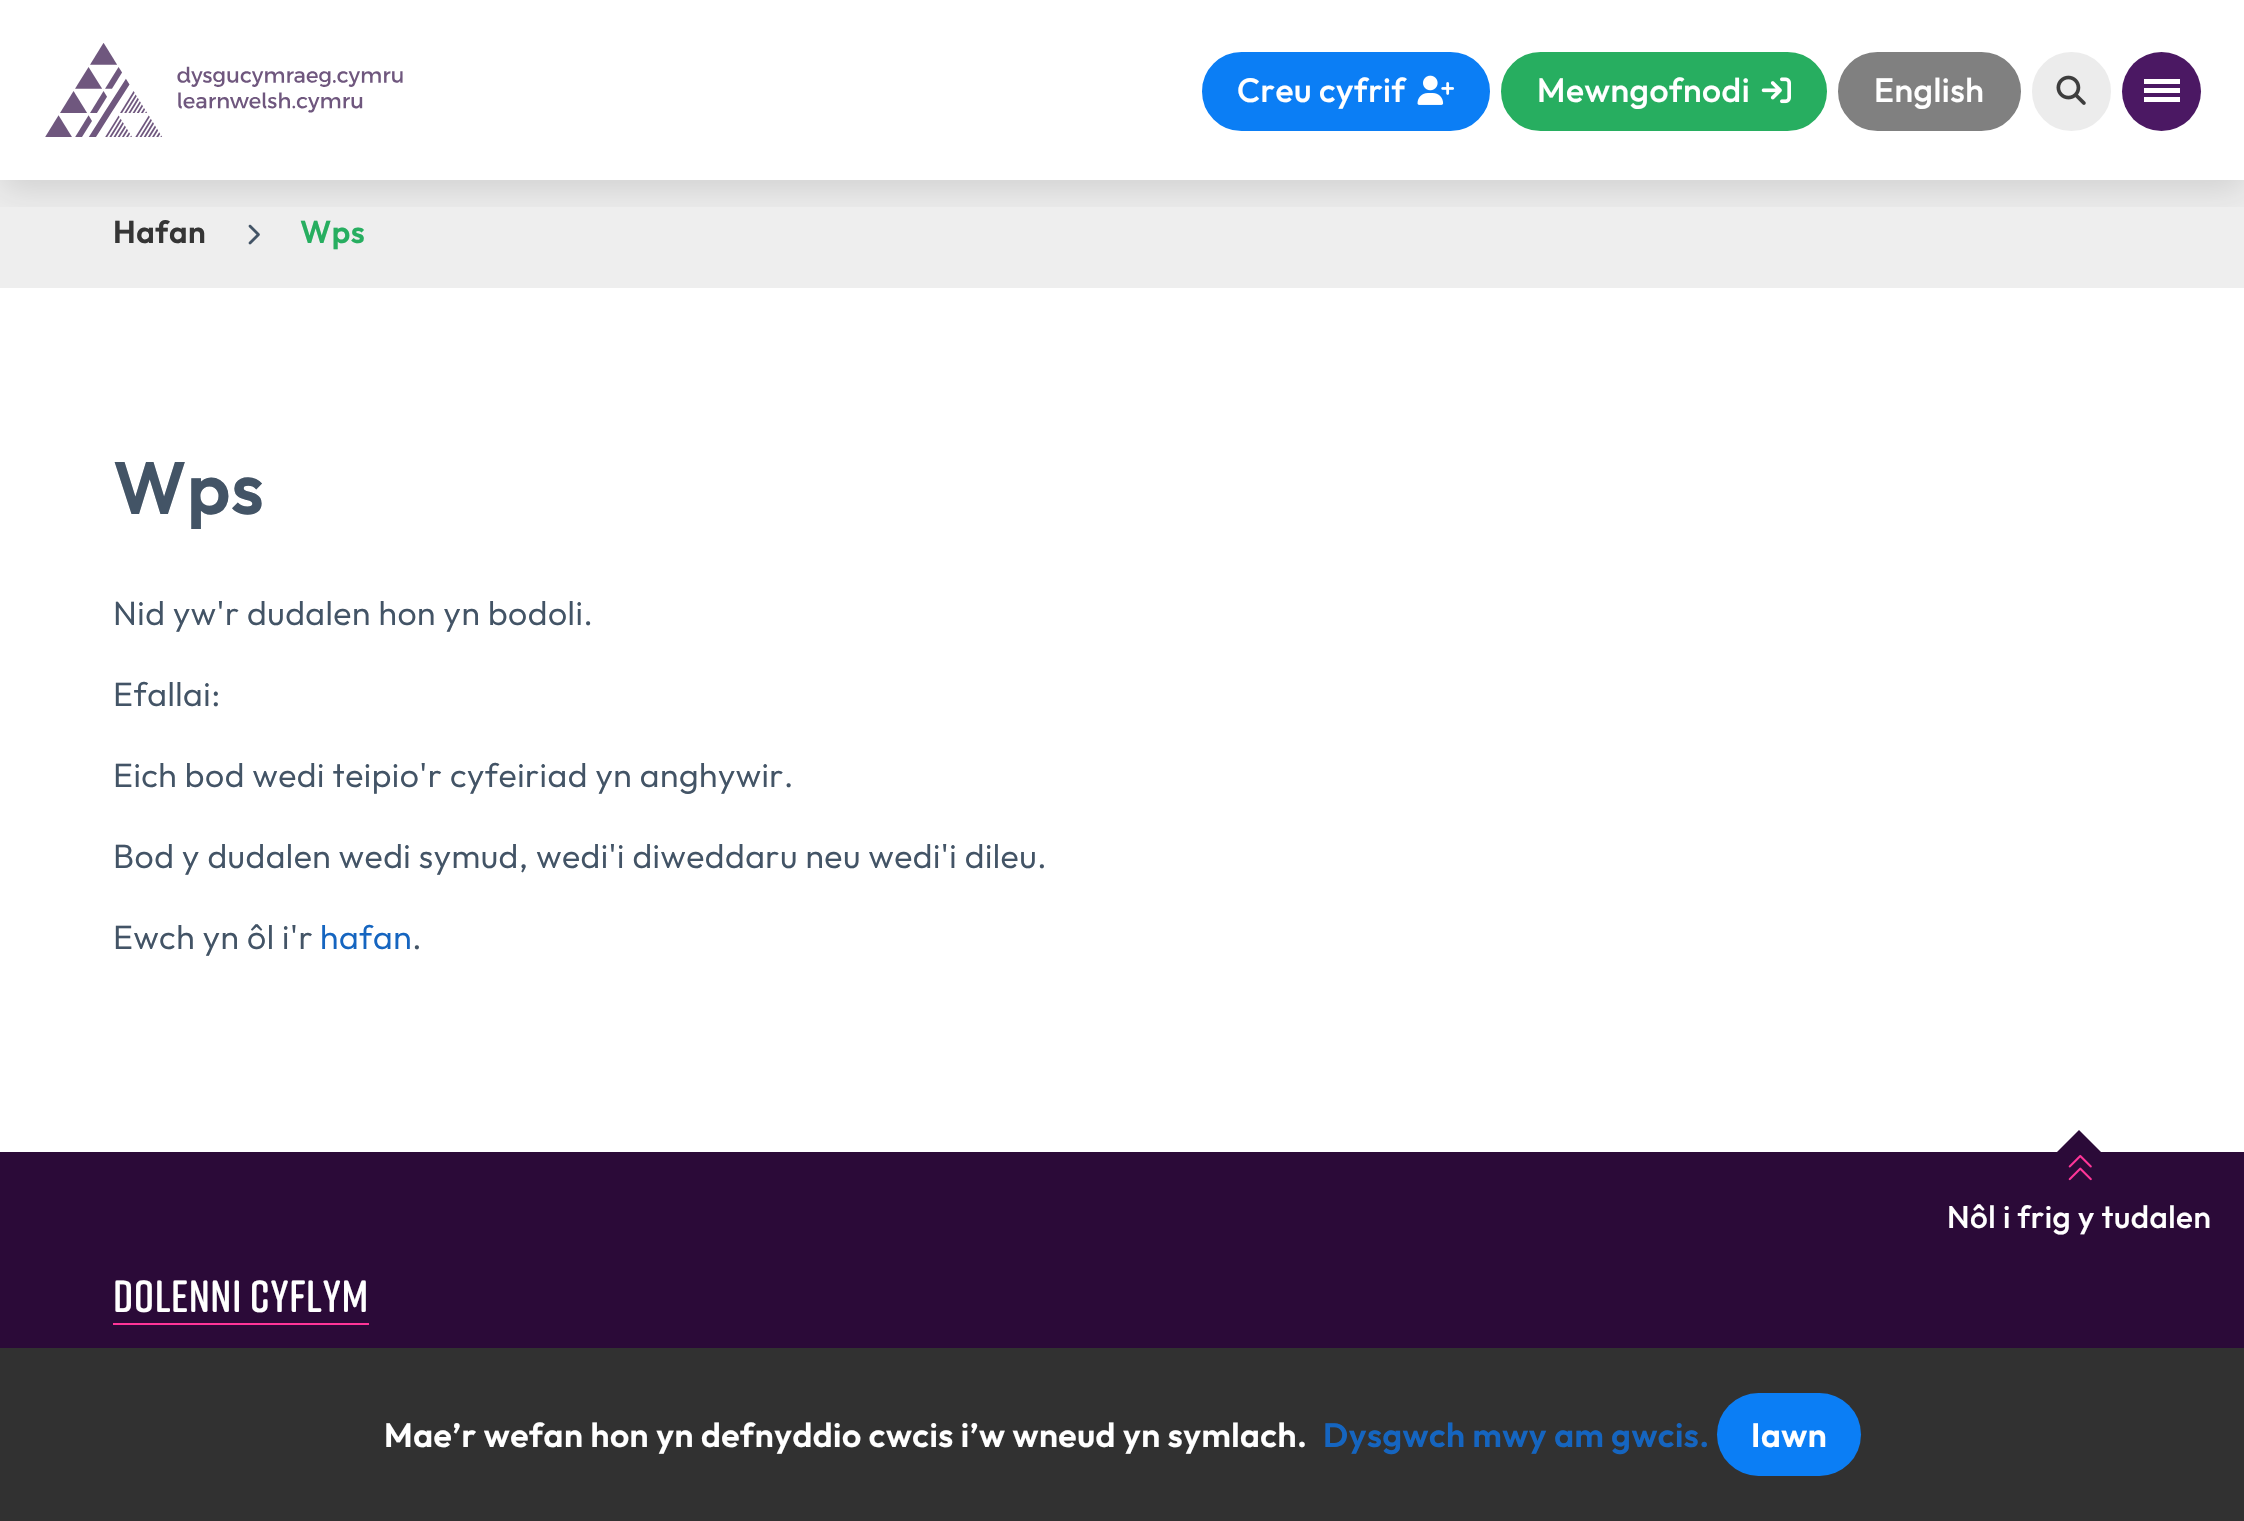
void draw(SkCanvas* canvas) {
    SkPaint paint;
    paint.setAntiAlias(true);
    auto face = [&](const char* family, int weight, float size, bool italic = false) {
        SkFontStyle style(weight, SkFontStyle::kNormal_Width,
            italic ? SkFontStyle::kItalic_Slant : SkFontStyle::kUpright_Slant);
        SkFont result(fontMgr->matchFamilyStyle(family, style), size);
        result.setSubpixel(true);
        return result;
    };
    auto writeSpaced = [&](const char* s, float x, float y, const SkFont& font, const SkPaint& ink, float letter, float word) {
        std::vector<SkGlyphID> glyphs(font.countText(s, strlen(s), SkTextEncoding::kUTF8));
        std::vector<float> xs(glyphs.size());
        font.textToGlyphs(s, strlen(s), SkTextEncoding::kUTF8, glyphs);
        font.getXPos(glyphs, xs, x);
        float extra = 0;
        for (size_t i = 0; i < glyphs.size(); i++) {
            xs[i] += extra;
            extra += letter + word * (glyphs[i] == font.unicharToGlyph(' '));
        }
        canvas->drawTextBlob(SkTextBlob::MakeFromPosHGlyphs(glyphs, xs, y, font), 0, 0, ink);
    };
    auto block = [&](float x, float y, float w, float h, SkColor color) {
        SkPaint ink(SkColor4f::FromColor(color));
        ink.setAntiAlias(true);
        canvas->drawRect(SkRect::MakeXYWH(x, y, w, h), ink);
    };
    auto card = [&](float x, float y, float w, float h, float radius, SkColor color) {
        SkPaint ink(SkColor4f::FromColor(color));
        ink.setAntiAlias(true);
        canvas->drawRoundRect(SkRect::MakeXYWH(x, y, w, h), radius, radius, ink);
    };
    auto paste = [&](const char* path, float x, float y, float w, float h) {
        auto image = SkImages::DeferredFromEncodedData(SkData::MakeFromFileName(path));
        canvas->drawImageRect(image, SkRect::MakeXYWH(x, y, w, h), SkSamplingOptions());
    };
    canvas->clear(SK_ColorWHITE);
    block(0, 180, 2244, 108, SkColorSetRGB(238, 238, 238));
    paste("pic5.png", 248, 224, 12, 21);
    canvas->save();
    canvas->clipRect(SkRect::MakeXYWH(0, 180, 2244, 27));
    paint.setColor(SkColorSetARGB(31, 0, 0, 0));
    paint.setMaskFilter(SkMaskFilter::MakeBlur(kNormal_SkBlurStyle, 17));
    canvas->drawRect(SkRect::MakeXYWH(0, 11, 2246, 180), paint);
    paint.setMaskFilter(nullptr);
    canvas->restore();
    paste("pic1.png", 45, 43, 358, 94);
    paint.setColor(SkColorSetRGB(11, 126, 245));
    canvas->drawRoundRect(SkRect::MakeXYWH(1203, 53, 286, 77), 38.5f, 38.5f, paint);
    paint.setStyle(SkPaint::kStroke_Style);
    paint.setStrokeWidth(2);
    canvas->drawRoundRect(SkRect::MakeXYWH(1203, 53, 286, 77), 38.5f, 38.5f, paint);
    auto kFont1 = face("Outfit", 500, 33.75f);
    paint.setStyle(SkPaint::kFill_Style);
    paint.setColor(SK_ColorWHITE);
    writeSpaced("Creu cyfrif", 1237, 102, kFont1, paint, 0.5f, 0);
    paste("pic2.png", 1417, 75, 37, 30);
    paint.setColor(SkColorSetRGB(39, 174, 96));
    canvas->drawRoundRect(SkRect::MakeXYWH(1502, 53, 324, 77), 38.5f, 38.5f, paint);
    paint.setStyle(SkPaint::kStroke_Style);
    canvas->drawRoundRect(SkRect::MakeXYWH(1502, 53, 324, 77), 38.5f, 38.5f, paint);
    paint.setStyle(SkPaint::kFill_Style);
    paint.setColor(SK_ColorWHITE);
    writeSpaced("Mewngofnodi", 1537, 102, kFont1, paint, 0.5f, 0);
    paste("pic3.png", 1761, 77, 30, 27);
    paint.setColor(SkColorSetRGB(128, 128, 128));
    canvas->drawRoundRect(SkRect::MakeXYWH(1839, 53, 181, 77), 38.5f, 38.5f, paint);
    paint.setStyle(SkPaint::kStroke_Style);
    canvas->drawRoundRect(SkRect::MakeXYWH(1839, 53, 181, 77), 38.5f, 38.5f, paint);
    paint.setStyle(SkPaint::kFill_Style);
    paint.setColor(SK_ColorWHITE);
    writeSpaced("English", 1874, 102, kFont1, paint, 0.5f, 0);
    paint.setColor(SkColorSetRGB(236, 236, 236));
    canvas->drawCircle(2071.5f, 91.5f, 38.5f, paint);
    paint.setStyle(SkPaint::kStroke_Style);
    canvas->drawCircle(2071.5f, 91.5f, 38.5f, paint);
    paste("pic4.png", 2056, 75, 30, 30);
    paint.setStyle(SkPaint::kFill_Style);
    paint.setColor(SkColorSetRGB(75, 24, 99));
    canvas->drawCircle(2161.5f, 91.5f, 39.5f, paint);
    block(2144, 88, 36, 5, SK_ColorWHITE);
    block(2144, 79, 36, 5, SK_ColorWHITE);
    block(2144, 97, 36, 5, SK_ColorWHITE);
    auto kFont2 = face("Outfit", 600, 31.5f);
    paint.setColor(SkColorSetRGB(53, 53, 53));
    writeSpaced("Hafan", 113, 243, kFont2, paint, 0.5f, 0);
    paint.setColor(SkColorSetRGB(39, 174, 96));
    writeSpaced("Wps", 300, 243, kFont2, paint, 0.5f, 0);
    auto kFont3 = face("Outfit", 600, 74);
    paint.setColor(SkColorSetRGB(67, 84, 102));
    writeSpaced("Wps", 113, 514, kFont3, paint, 0.5f, 0);
    auto kFont4 = face("Outfit", 300, 33.75f);
    writeSpaced("Nid yw'r dudalen hon yn bodoli.", 113, 625, kFont4, paint, 0.5f, 0);
    writeSpaced("Efallai:", 113, 706, kFont4, paint, 0.5f, 0);
    writeSpaced("Eich bod wedi teipio'r cyfeiriad yn anghywir.", 113, 787, kFont4, paint, 0.5f, 0);
    writeSpaced("Bod y dudalen wedi symud, wedi'i diweddaru neu wedi'i dileu.", 113, 868, kFont4, paint, 0.5f, 0);
    writeSpaced("Ewch yn ôl i'r", 113, 949, kFont4, paint, 0.5f, 0);
    paint.setColor(SkColorSetRGB(21, 101, 192));
    writeSpaced("hafan", 320, 949, kFont4, paint, 0.5f, 0);
    paint.setColor(SkColorSetRGB(67, 84, 102));
    writeSpaced(".", 412, 949, kFont4, paint, 0.5f, 0);
    block(0, 1152, 2244, 196, SkColorSetRGB(43, 10, 56));
    paint.setColor(SkColorSetRGB(43, 10, 56));
    canvas->drawPath(SkPathBuilder().moveTo(2133, 1184).lineTo(2025, 1184).lineTo(2079, 1130).close().detach(), paint);
    paste("pic6.png", 2068, 1154, 24, 27);
    auto kFont5 = face("Outfit", 500, 31.5f);
    paint.setColor(SK_ColorWHITE);
    writeSpaced("Nôl i frig y tudalen", 1947, 1228, kFont5, paint, 0.5f, 0);
    auto kFont6 = face("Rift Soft", 600, 45);
    writeSpaced("Dolenni cyflym", 113, 1312, kFont6, paint, 0.5f, 0);
    block(113, 1323, 256, 2, SkColorSetRGB(255, 53, 152));
    block(0, 1348, 2244, 173, SkColorSetRGB(49, 49, 49));
    auto kFont7 = face("Outfit", 600, 33.75f);
    writeSpaced("Mae’r wefan hon yn defnyddio cwcis i’w wneud yn symlach.", 384, 1447, kFont7, paint, 0.5f, 0);
    paint.setColor(SkColorSetRGB(21, 101, 192));
    writeSpaced("Dysgwch mwy am gwcis.", 1323, 1447, kFont7, paint, 0.5f, 0);
    card(1717, 1393, 144, 83, 41.5f, SkColorSetRGB(11, 126, 245));
    paint.setColor(SK_ColorWHITE);
    writeSpaced("Iawn", 1751, 1447, kFont7, paint, 0.5f, 0);
}
